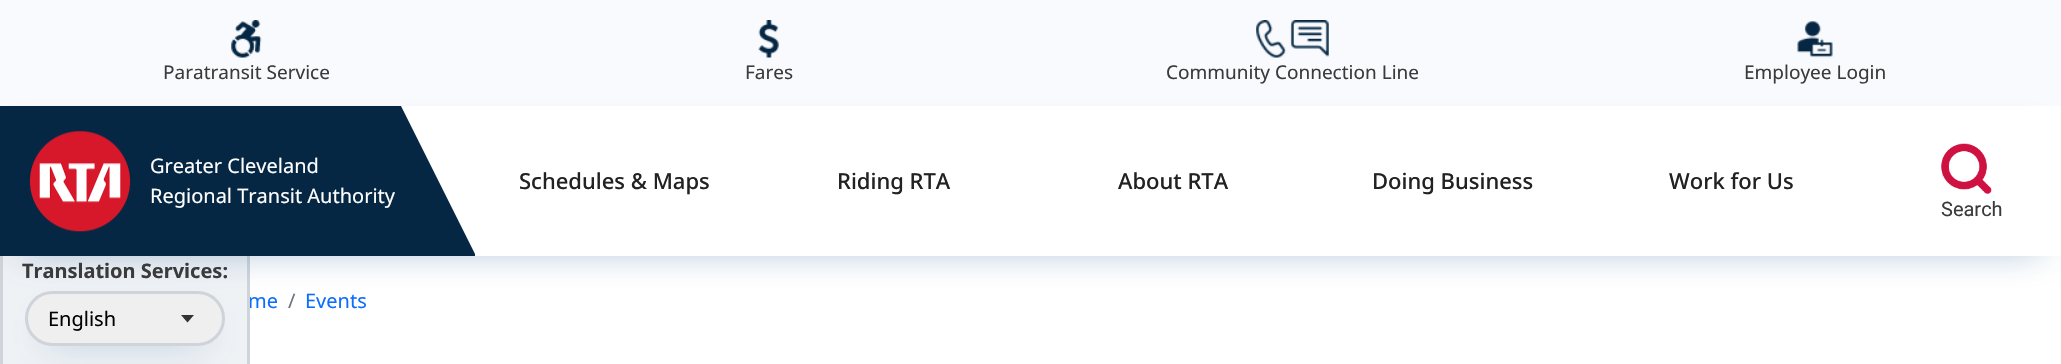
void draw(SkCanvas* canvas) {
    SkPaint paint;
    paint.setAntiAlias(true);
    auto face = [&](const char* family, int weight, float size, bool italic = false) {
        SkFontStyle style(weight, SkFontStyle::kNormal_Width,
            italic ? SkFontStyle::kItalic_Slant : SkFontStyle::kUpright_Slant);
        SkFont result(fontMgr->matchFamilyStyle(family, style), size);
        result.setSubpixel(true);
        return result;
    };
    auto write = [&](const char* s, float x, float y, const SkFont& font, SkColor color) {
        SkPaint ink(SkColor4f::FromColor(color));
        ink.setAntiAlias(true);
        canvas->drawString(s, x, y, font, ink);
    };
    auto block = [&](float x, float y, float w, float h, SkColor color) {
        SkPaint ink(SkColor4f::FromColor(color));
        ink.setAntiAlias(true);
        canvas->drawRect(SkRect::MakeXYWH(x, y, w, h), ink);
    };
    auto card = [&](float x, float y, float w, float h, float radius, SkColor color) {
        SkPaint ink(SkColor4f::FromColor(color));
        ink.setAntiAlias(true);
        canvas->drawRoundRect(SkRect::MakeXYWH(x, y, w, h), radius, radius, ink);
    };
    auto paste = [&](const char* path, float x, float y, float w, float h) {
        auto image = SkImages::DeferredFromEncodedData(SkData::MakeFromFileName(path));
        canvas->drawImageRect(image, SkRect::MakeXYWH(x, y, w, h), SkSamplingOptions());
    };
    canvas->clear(SK_ColorWHITE);
    block(0, 0, 2061, 106, SkColorSetRGB(248, 250, 253));
    paste("pic1.png", 231, 20, 31, 38);
    auto kFont1 = face("Noto Sans", 400, 19);
    write("Paratransit Service", 163, 79, kFont1, SkColorSetRGB(59, 59, 59));
    paste("pic2.png", 758, 20, 21, 38);
    write("Fares", 745, 79, kFont1, SkColorSetRGB(59, 59, 59));
    paste("pic3.png", 1256, 20, 73, 38);
    write("Community Connection Line", 1166, 79, kFont1, SkColorSetRGB(59, 59, 59));
    paste("pic4.png", 1797, 21, 36, 37);
    write("Employee Login", 1744, 79, kFont1, SkColorSetRGB(59, 59, 59));
    block(3, 256, 244, 108, SkColorSetRGB(239, 242, 245));
    auto kFont2 = face("Noto Sans", 400, 20);
    write("me", 248, 308, kFont2, SkColorSetRGB(13, 110, 253));
    paint.setStyle(SkPaint::kStroke_Style);
    paint.setStrokeWidth(3);
    paint.setColor(SkColorSetRGB(206, 212, 218));
    canvas->drawRect(SkRect::MakeXYWH(1.5f, 249.5f, 247, 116), paint);
    paint.setStyle(SkPaint::kFill_Style);
    paint.setColor(SkColorSetARGB(102, 16, 75, 138));
    paint.setMaskFilter(SkMaskFilter::MakeBlur(kNormal_SkBlurStyle, 19));
    canvas->drawRoundRect(SkRect::MakeXYWH(45, 324, 160, 15), 7.5f, 7.5f, paint);
    paint.setMaskFilter(nullptr);
    card(25, 291, 200, 55, 27.5f, SkColorSetRGB(239, 239, 239));
    paint.setColor(SkColorSetRGB(51, 51, 51));
    canvas->drawPath(SkPathBuilder(SkPathFillType::kEvenOdd).moveTo(187.5f, 322.5f).lineTo(181, 315).lineTo(194, 315).close().detach(), paint);
    paint.setStyle(SkPaint::kStroke_Style);
    paint.setColor(SkColorSetRGB(206, 212, 218));
    canvas->drawRoundRect(SkRect::MakeXYWH(26.5f, 292.5f, 197, 52), 26, 26, paint);
    paint.setStyle(SkPaint::kFill_Style);
    paint.setColor(SkColorSetARGB(102, 16, 75, 138));
    paint.setMaskFilter(SkMaskFilter::MakeBlur(kNormal_SkBlurStyle, 19));
    canvas->drawRect(SkRect::MakeXYWH(20, 139, 2021, 110), paint);
    paint.setMaskFilter(nullptr);
    block(475, 106, 1586, 150, SK_ColorWHITE);
    block(0, 106, 475, 150, SkColorSetRGB(6, 39, 67));
    paste("pic5.png", 30, 131, 100, 101);
    write("Greater Cleveland", 150, 173, kFont2, SK_ColorWHITE);
    write("Regional Transit Authority", 150, 203, kFont2, SK_ColorWHITE);
    paint.setColor(SK_ColorWHITE);
    canvas->drawPath(SkPathBuilder().moveTo(476, 106).lineTo(476, 256).lineTo(401, 106).close().detach(), paint);
    auto kFont3 = face("Noto Sans", 500, 22);
    write("Schedules & Maps", 519, 189, kFont3, SkColorSetRGB(34, 34, 34));
    write("Riding RTA", 837, 189, kFont3, SkColorSetRGB(34, 34, 34));
    write("About RTA", 1118, 189, kFont3, SkColorSetRGB(34, 34, 34));
    write("Doing Business", 1372, 189, kFont3, SkColorSetRGB(34, 34, 34));
    write("Work for Us", 1669, 189, kFont3, SkColorSetRGB(34, 34, 34));
    paste("pic6.png", 1941, 143, 51, 51);
    auto kFont4 = face("Roboto", 400, 20);
    write("Search", 1941, 216, kFont4, SkColorSetRGB(59, 59, 59));
    auto kFont5 = face("Noto Sans", 700, 20);
    write("Translation Services:", 22, 278, kFont5, SkColorSetRGB(59, 59, 59));
    write("English", 48, 326, kFont2, SK_ColorBLACK);
    write("/", 288, 308, kFont2, SkColorSetRGB(108, 117, 125));
    write("Events", 305, 308, kFont2, SkColorSetRGB(13, 110, 253));
}
